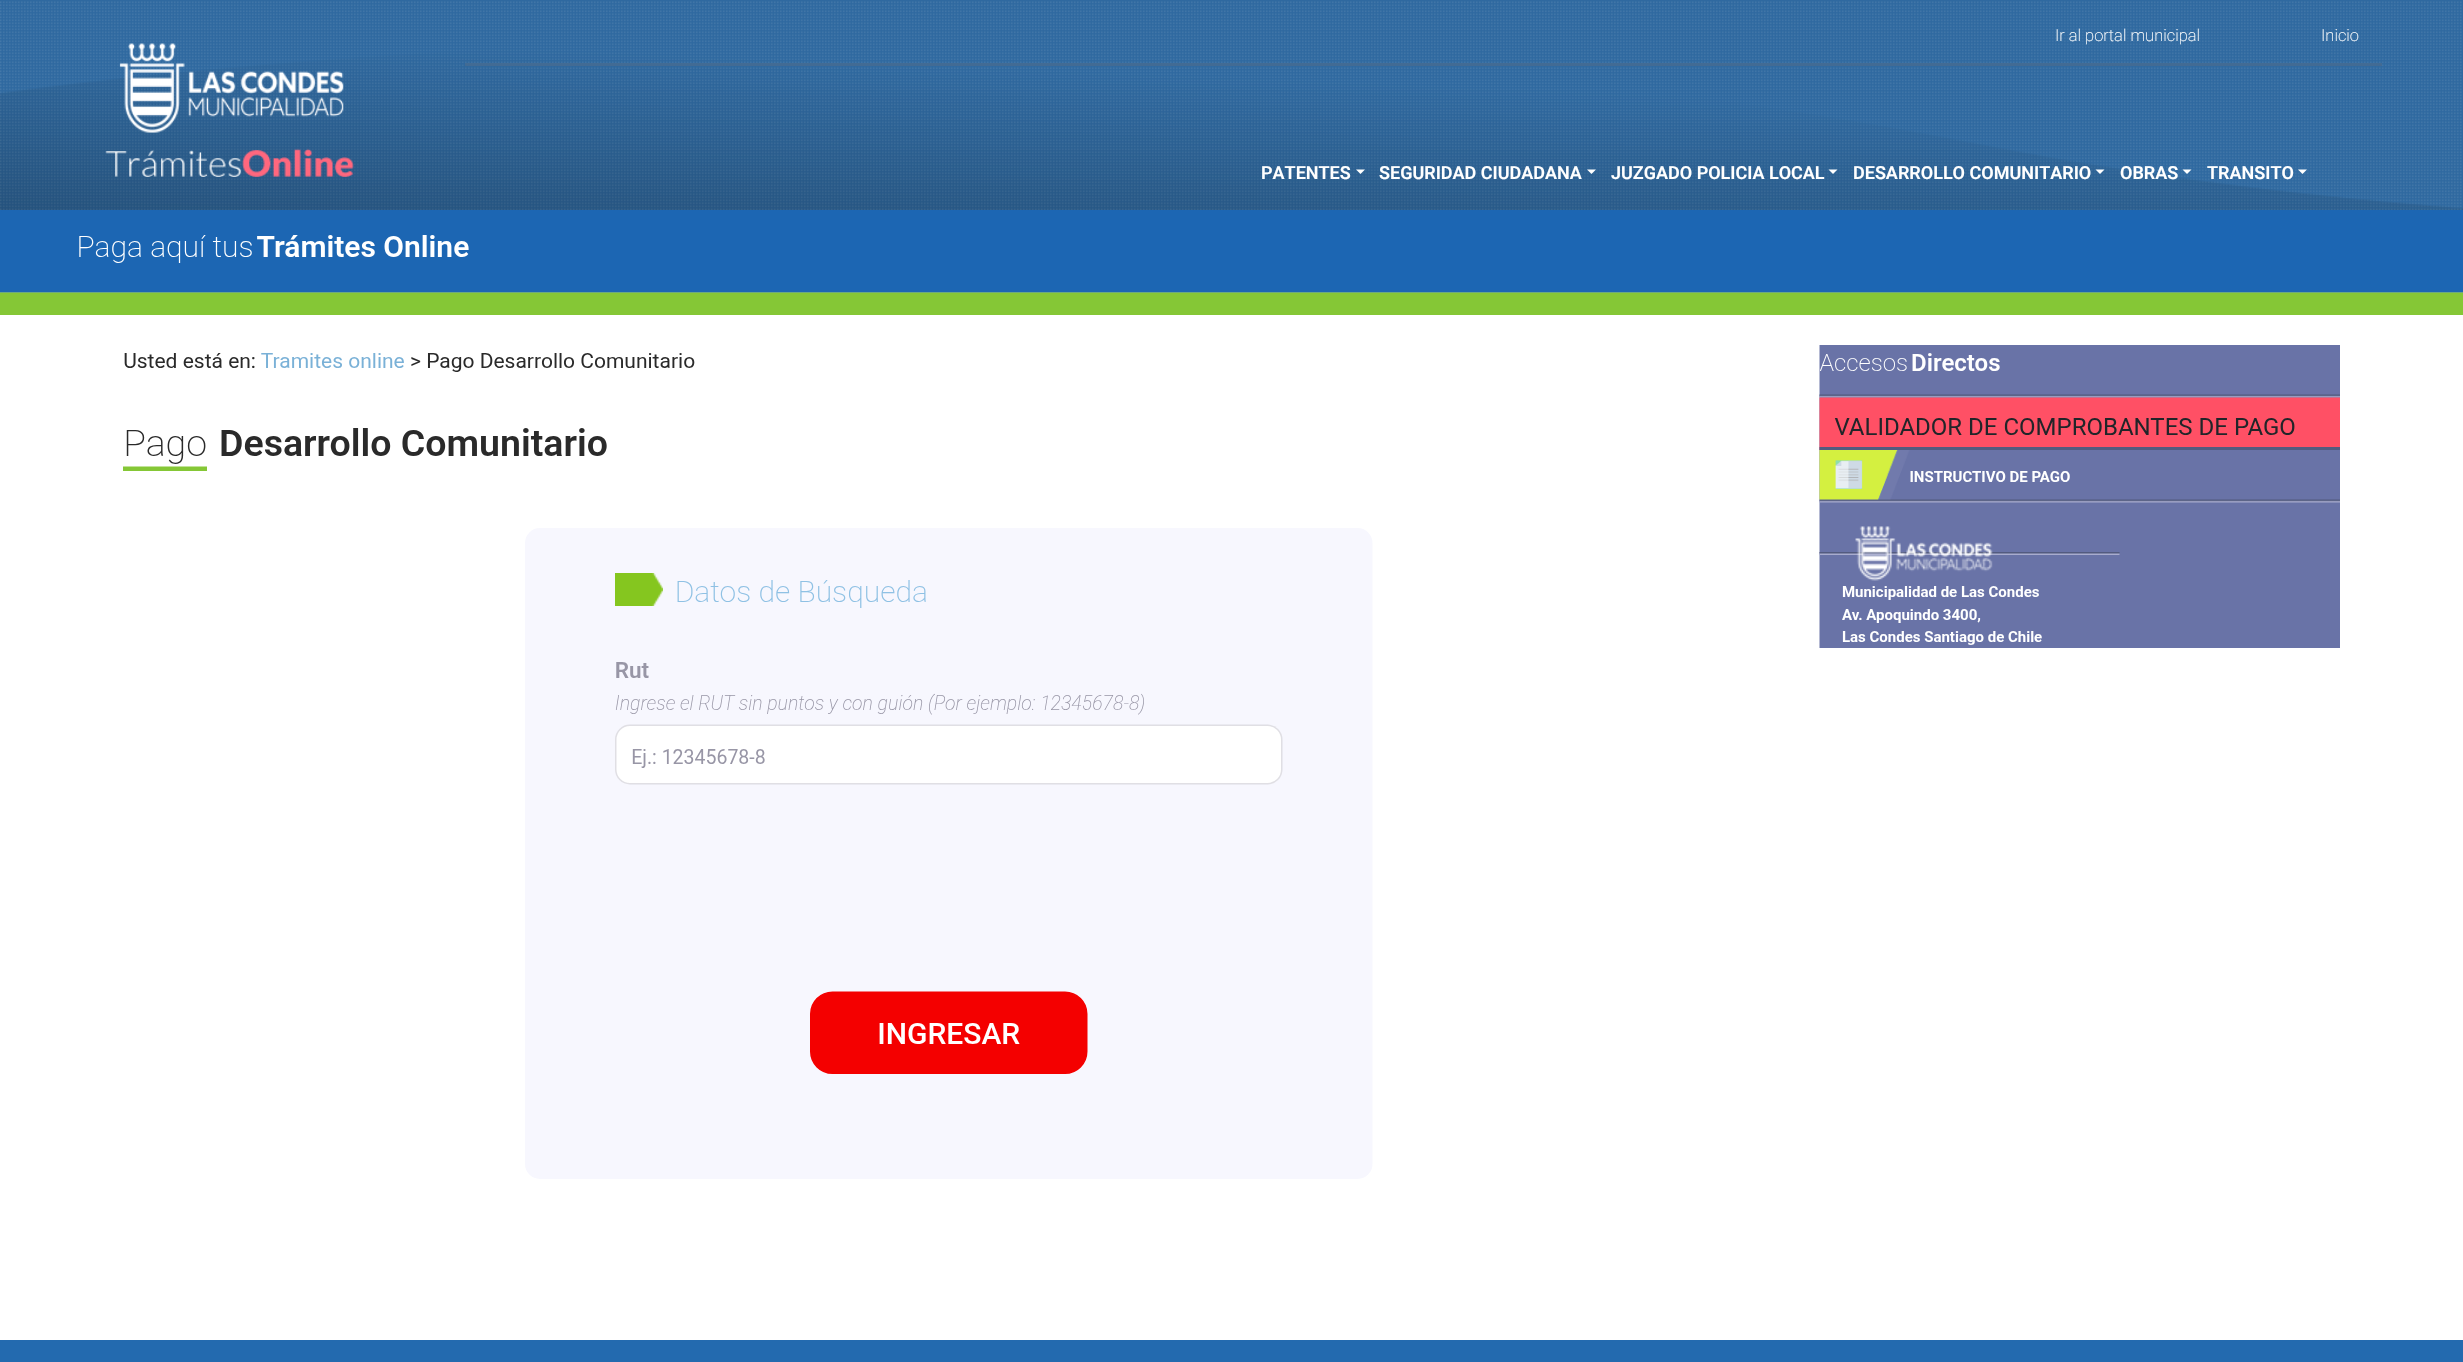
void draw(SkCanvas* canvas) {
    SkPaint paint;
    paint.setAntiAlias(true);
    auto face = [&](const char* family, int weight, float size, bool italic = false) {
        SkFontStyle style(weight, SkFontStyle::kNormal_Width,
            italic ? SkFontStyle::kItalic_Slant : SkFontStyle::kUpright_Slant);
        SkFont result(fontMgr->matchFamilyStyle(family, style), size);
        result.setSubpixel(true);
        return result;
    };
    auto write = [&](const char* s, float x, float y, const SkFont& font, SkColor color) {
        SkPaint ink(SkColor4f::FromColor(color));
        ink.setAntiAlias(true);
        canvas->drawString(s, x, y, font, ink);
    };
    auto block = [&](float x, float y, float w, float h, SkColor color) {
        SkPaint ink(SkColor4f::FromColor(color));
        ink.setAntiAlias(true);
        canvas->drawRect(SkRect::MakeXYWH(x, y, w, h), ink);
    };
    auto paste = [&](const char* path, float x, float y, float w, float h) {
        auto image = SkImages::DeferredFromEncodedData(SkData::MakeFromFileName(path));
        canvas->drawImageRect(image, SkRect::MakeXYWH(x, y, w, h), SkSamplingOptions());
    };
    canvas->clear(SK_ColorWHITE);
    paste("pic1.png", 0, 0, 2463, 210);
    paste("pic2.png", 105, 43, 249, 134);
    block(465, 63, 1917, 3, SkColorSetRGB(66, 107, 148));
    auto kFont1 = face("Roboto", 200, 16.5f);
    write("Ir al portal municipal", 2055, 41, kFont1, SK_ColorWHITE);
    write("Inicio", 2321, 41, kFont1, SK_ColorWHITE);
    auto kFont2 = face("Roboto", 600, 18);
    write("PATENTES", 1261, 179, kFont2, SK_ColorWHITE);
    paint.setColor(SK_ColorWHITE);
    canvas->drawPath(SkPathBuilder().moveTo(1356, 169.5f).lineTo(1365, 169.5f).lineTo(1360.5f, 174).close().detach(), paint);
    write("SEGURIDAD CIUDADANA", 1379, 179, kFont2, SK_ColorWHITE);
    canvas->drawPath(SkPathBuilder().moveTo(1587, 169.5f).lineTo(1596, 169.5f).lineTo(1591.5f, 174).close().detach(), paint);
    write("JUZGADO POLICIA LOCAL", 1611, 179, kFont2, SK_ColorWHITE);
    canvas->drawPath(SkPathBuilder().moveTo(1828.5f, 169.5f).lineTo(1837.5f, 169.5f).lineTo(1833, 174).close().detach(), paint);
    write("DESARROLLO COMUNITARIO", 1853, 179, kFont2, SK_ColorWHITE);
    canvas->drawPath(SkPathBuilder().moveTo(2095.5f, 169.5f).lineTo(2104.5f, 169.5f).lineTo(2100, 174).close().detach(), paint);
    write("OBRAS", 2120, 179, kFont2, SK_ColorWHITE);
    canvas->drawPath(SkPathBuilder().moveTo(2182.5f, 169.5f).lineTo(2191.5f, 169.5f).lineTo(2187, 174).close().detach(), paint);
    write("TRANSITO", 2207, 179, kFont2, SK_ColorWHITE);
    canvas->drawPath(SkPathBuilder().moveTo(2298, 169.5f).lineTo(2307, 169.5f).lineTo(2302.5f, 174).close().detach(), paint);
    paste("pic3.png", 0, 210, 2463, 969);
    block(0, 1340, 2463, 22, SkColorSetRGB(35, 106, 175));
}
